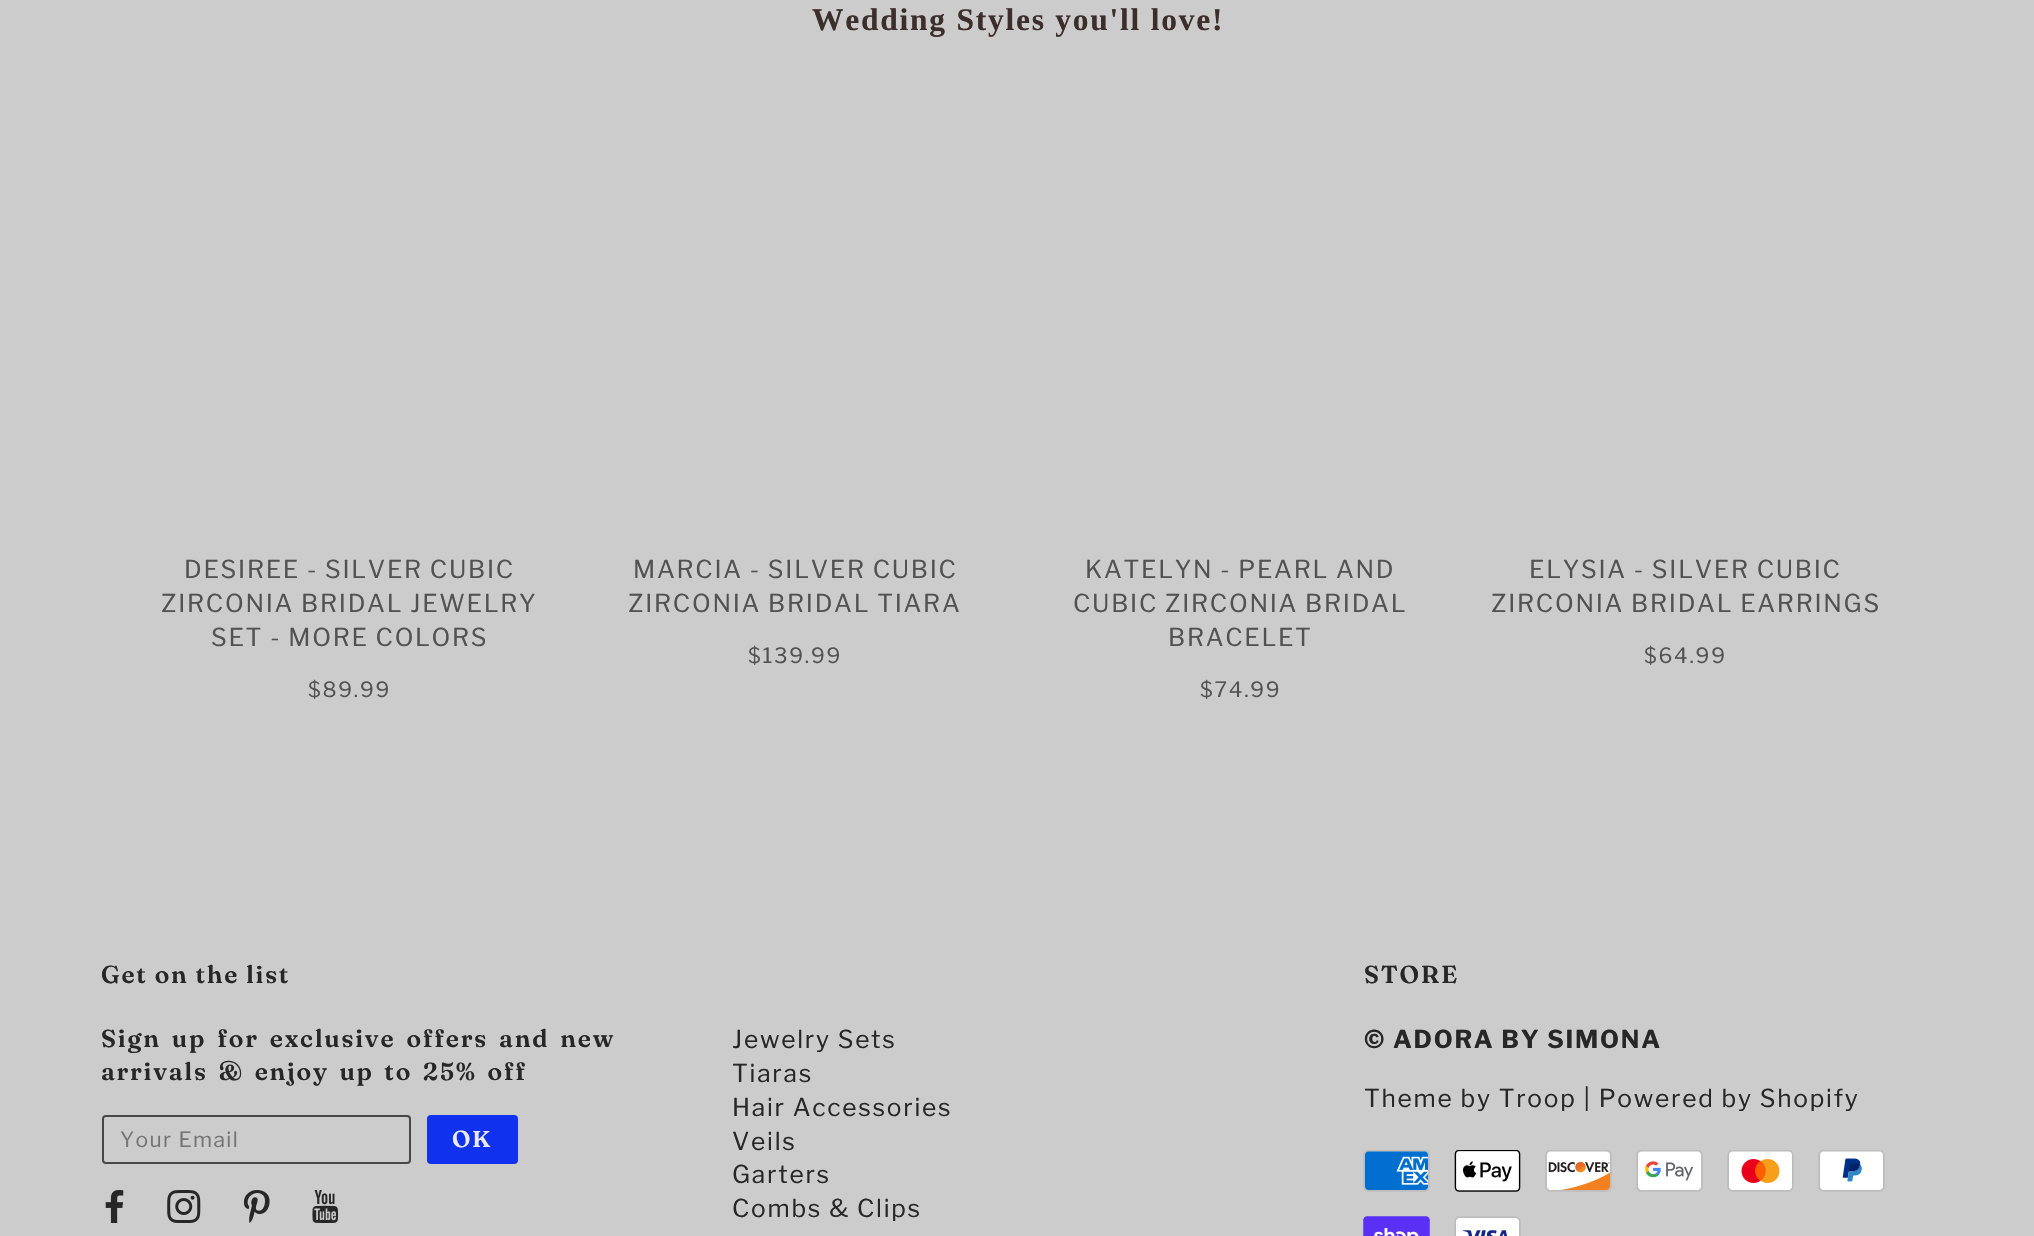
void draw(SkCanvas* canvas) {
    SkPaint paint;
    paint.setAntiAlias(true);
    auto face = [&](const char* family, int weight, float size, bool italic = false) {
        SkFontStyle style(weight, SkFontStyle::kNormal_Width,
            italic ? SkFontStyle::kItalic_Slant : SkFontStyle::kUpright_Slant);
        SkFont result(fontMgr->matchFamilyStyle(family, style), size);
        result.setSubpixel(true);
        return result;
    };
    auto writeSpaced = [&](const char* s, float x, float y, const SkFont& font, const SkPaint& ink, float letter, float word) {
        std::vector<SkGlyphID> glyphs(font.countText(s, strlen(s), SkTextEncoding::kUTF8));
        std::vector<float> xs(glyphs.size());
        font.textToGlyphs(s, strlen(s), SkTextEncoding::kUTF8, glyphs);
        font.getXPos(glyphs, xs, x);
        float extra = 0;
        for (size_t i = 0; i < glyphs.size(); i++) {
            xs[i] += extra;
            extra += letter + word * (glyphs[i] == font.unicharToGlyph(' '));
        }
        canvas->drawTextBlob(SkTextBlob::MakeFromPosHGlyphs(glyphs, xs, y, font), 0, 0, ink);
    };
    auto card = [&](float x, float y, float w, float h, float radius, SkColor color) {
        SkPaint ink(SkColor4f::FromColor(color));
        ink.setAntiAlias(true);
        canvas->drawRoundRect(SkRect::MakeXYWH(x, y, w, h), radius, radius, ink);
    };
    auto paste = [&](const char* path, float x, float y, float w, float h) {
        auto image = SkImages::DeferredFromEncodedData(SkData::MakeFromFileName(path));
        canvas->drawImageRect(image, SkRect::MakeXYWH(x, y, w, h), SkSamplingOptions());
    };
    canvas->clear(SkColorSetRGB(204, 204, 204));
    auto kFont1 = face("Liberation Serif", 700, 31.5f);
    paint.setColor(SkColorSetRGB(60, 46, 43));
    writeSpaced("Wedding Styles you'll love!", 812, 30, kFont1, paint, 1.75f, 0);
    auto kFont2 = face("Libre Franklin", 400, 24.5f);
    paint.setColor(SkColorSetRGB(83, 82, 82));
    writeSpaced("DESIREE - SILVER CUBIC", 184, 578, kFont2, paint, 1.75f, 0);
    writeSpaced("ZIRCONIA BRIDAL JEWELRY", 161, 612, kFont2, paint, 1.75f, 0);
    writeSpaced("SET - MORE COLORS", 211, 646, kFont2, paint, 1.75f, 0);
    auto kFont3 = face("Libre Franklin", 400, 21);
    writeSpaced("$89.99", 308, 697, kFont3, paint, 1.75f, 0);
    writeSpaced("MARCIA - SILVER CUBIC", 633, 578, kFont2, paint, 1.75f, 0);
    writeSpaced("ZIRCONIA BRIDAL TIARA", 628, 612, kFont2, paint, 1.75f, 0);
    writeSpaced("$139.99", 748, 663, kFont3, paint, 1.75f, 0);
    writeSpaced("KATELYN - PEARL AND", 1085, 578, kFont2, paint, 1.75f, 0);
    writeSpaced("CUBIC ZIRCONIA BRIDAL", 1073, 612, kFont2, paint, 1.75f, 0);
    writeSpaced("BRACELET", 1168, 646, kFont2, paint, 1.75f, 0);
    writeSpaced("$74.99", 1200, 697, kFont3, paint, 1.75f, 0);
    writeSpaced("ELYSIA - SILVER CUBIC", 1529, 578, kFont2, paint, 1.75f, 0);
    writeSpaced("ZIRCONIA BRIDAL EARRINGS", 1491, 612, kFont2, paint, 1.75f, 0);
    writeSpaced("$64.99", 1644, 663, kFont3, paint, 1.75f, 0);
    auto kFont4 = face("Fraunces", 600, 24.5f);
    paint.setColor(SkColorSetRGB(39, 39, 39));
    writeSpaced("Get on the list", 101, 983, kFont4, paint, 1.75f, 0);
    auto kFont5 = face("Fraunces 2", 600, 24.5f);
    writeSpaced("Sign up for exclusive offers and new", 101, 1047, kFont5, paint, 1.75f, 4);
    writeSpaced("arrivals & enjoy up to 25% off", 101, 1080, kFont5, paint, 1.75f, 3.5f);
    paint.setStyle(SkPaint::kStroke_Style);
    paint.setStrokeWidth(2);
    paint.setColor(SkColorSetRGB(71, 71, 71));
    canvas->drawRoundRect(SkRect::MakeXYWH(103, 1116, 307, 47), 3, 3, paint);
    paint.setStyle(SkPaint::kFill_Style);
    paint.setColor(SkColorSetRGB(117, 117, 117));
    writeSpaced("Your Email", 120, 1147, kFont3, paint, 1.4f, 0);
    card(427, 1115, 91, 49, 4, SkColorSetRGB(16, 49, 237));
    auto kFont6 = face("Fraunces 2", 600, 23);
    paint.setColor(SkColorSetRGB(235, 235, 235));
    writeSpaced("OK", 452, 1147, kFont6, paint, 1.75f, 0);
    paste("pic1.png", 105, 1190, 19, 33);
    paste("pic2.png", 167, 1190, 34, 33);
    paste("pic3.png", 243, 1190, 27, 33);
    paste("pic4.png", 312, 1190, 27, 33);
    paint.setColor(SkColorSetRGB(39, 39, 39));
    writeSpaced("Jewelry Sets", 732, 1048, kFont2, paint, 1.75f, 0);
    writeSpaced("Tiaras", 732, 1082, kFont2, paint, 1.75f, 0);
    writeSpaced("Hair Accessories", 732, 1116, kFont2, paint, 1.75f, 0);
    writeSpaced("Veils", 732, 1150, kFont2, paint, 1.75f, 0);
    writeSpaced("Garters", 732, 1183, kFont2, paint, 1.75f, 0);
    writeSpaced("Combs & Clips", 732, 1217, kFont2, paint, 1.75f, 0);
    writeSpaced("STORE", 1364, 983, kFont4, paint, 1.75f, 0);
    auto kFont7 = face("Libre Franklin", 700, 24.5f);
    writeSpaced("© ADORA BY SIMONA", 1364, 1048, kFont7, paint, 1.75f, 0);
    writeSpaced("Theme by Troop | Powered by Shopify", 1364, 1107, kFont2, paint, 1.75f, 0);
    paste("pic5.png", 1363, 1150, 67, 42);
    paste("pic6.png", 1454, 1150, 67, 42);
    paste("pic7.png", 1545, 1150, 67, 42);
    paste("pic8.png", 1636, 1150, 67, 42);
    paste("pic9.png", 1727, 1150, 67, 42);
    paste("pic10.png", 1818, 1150, 67, 42);
    paste("pic11.png", 1363, 1216, 67, 20);
    paste("pic12.png", 1454, 1216, 67, 20);
}
